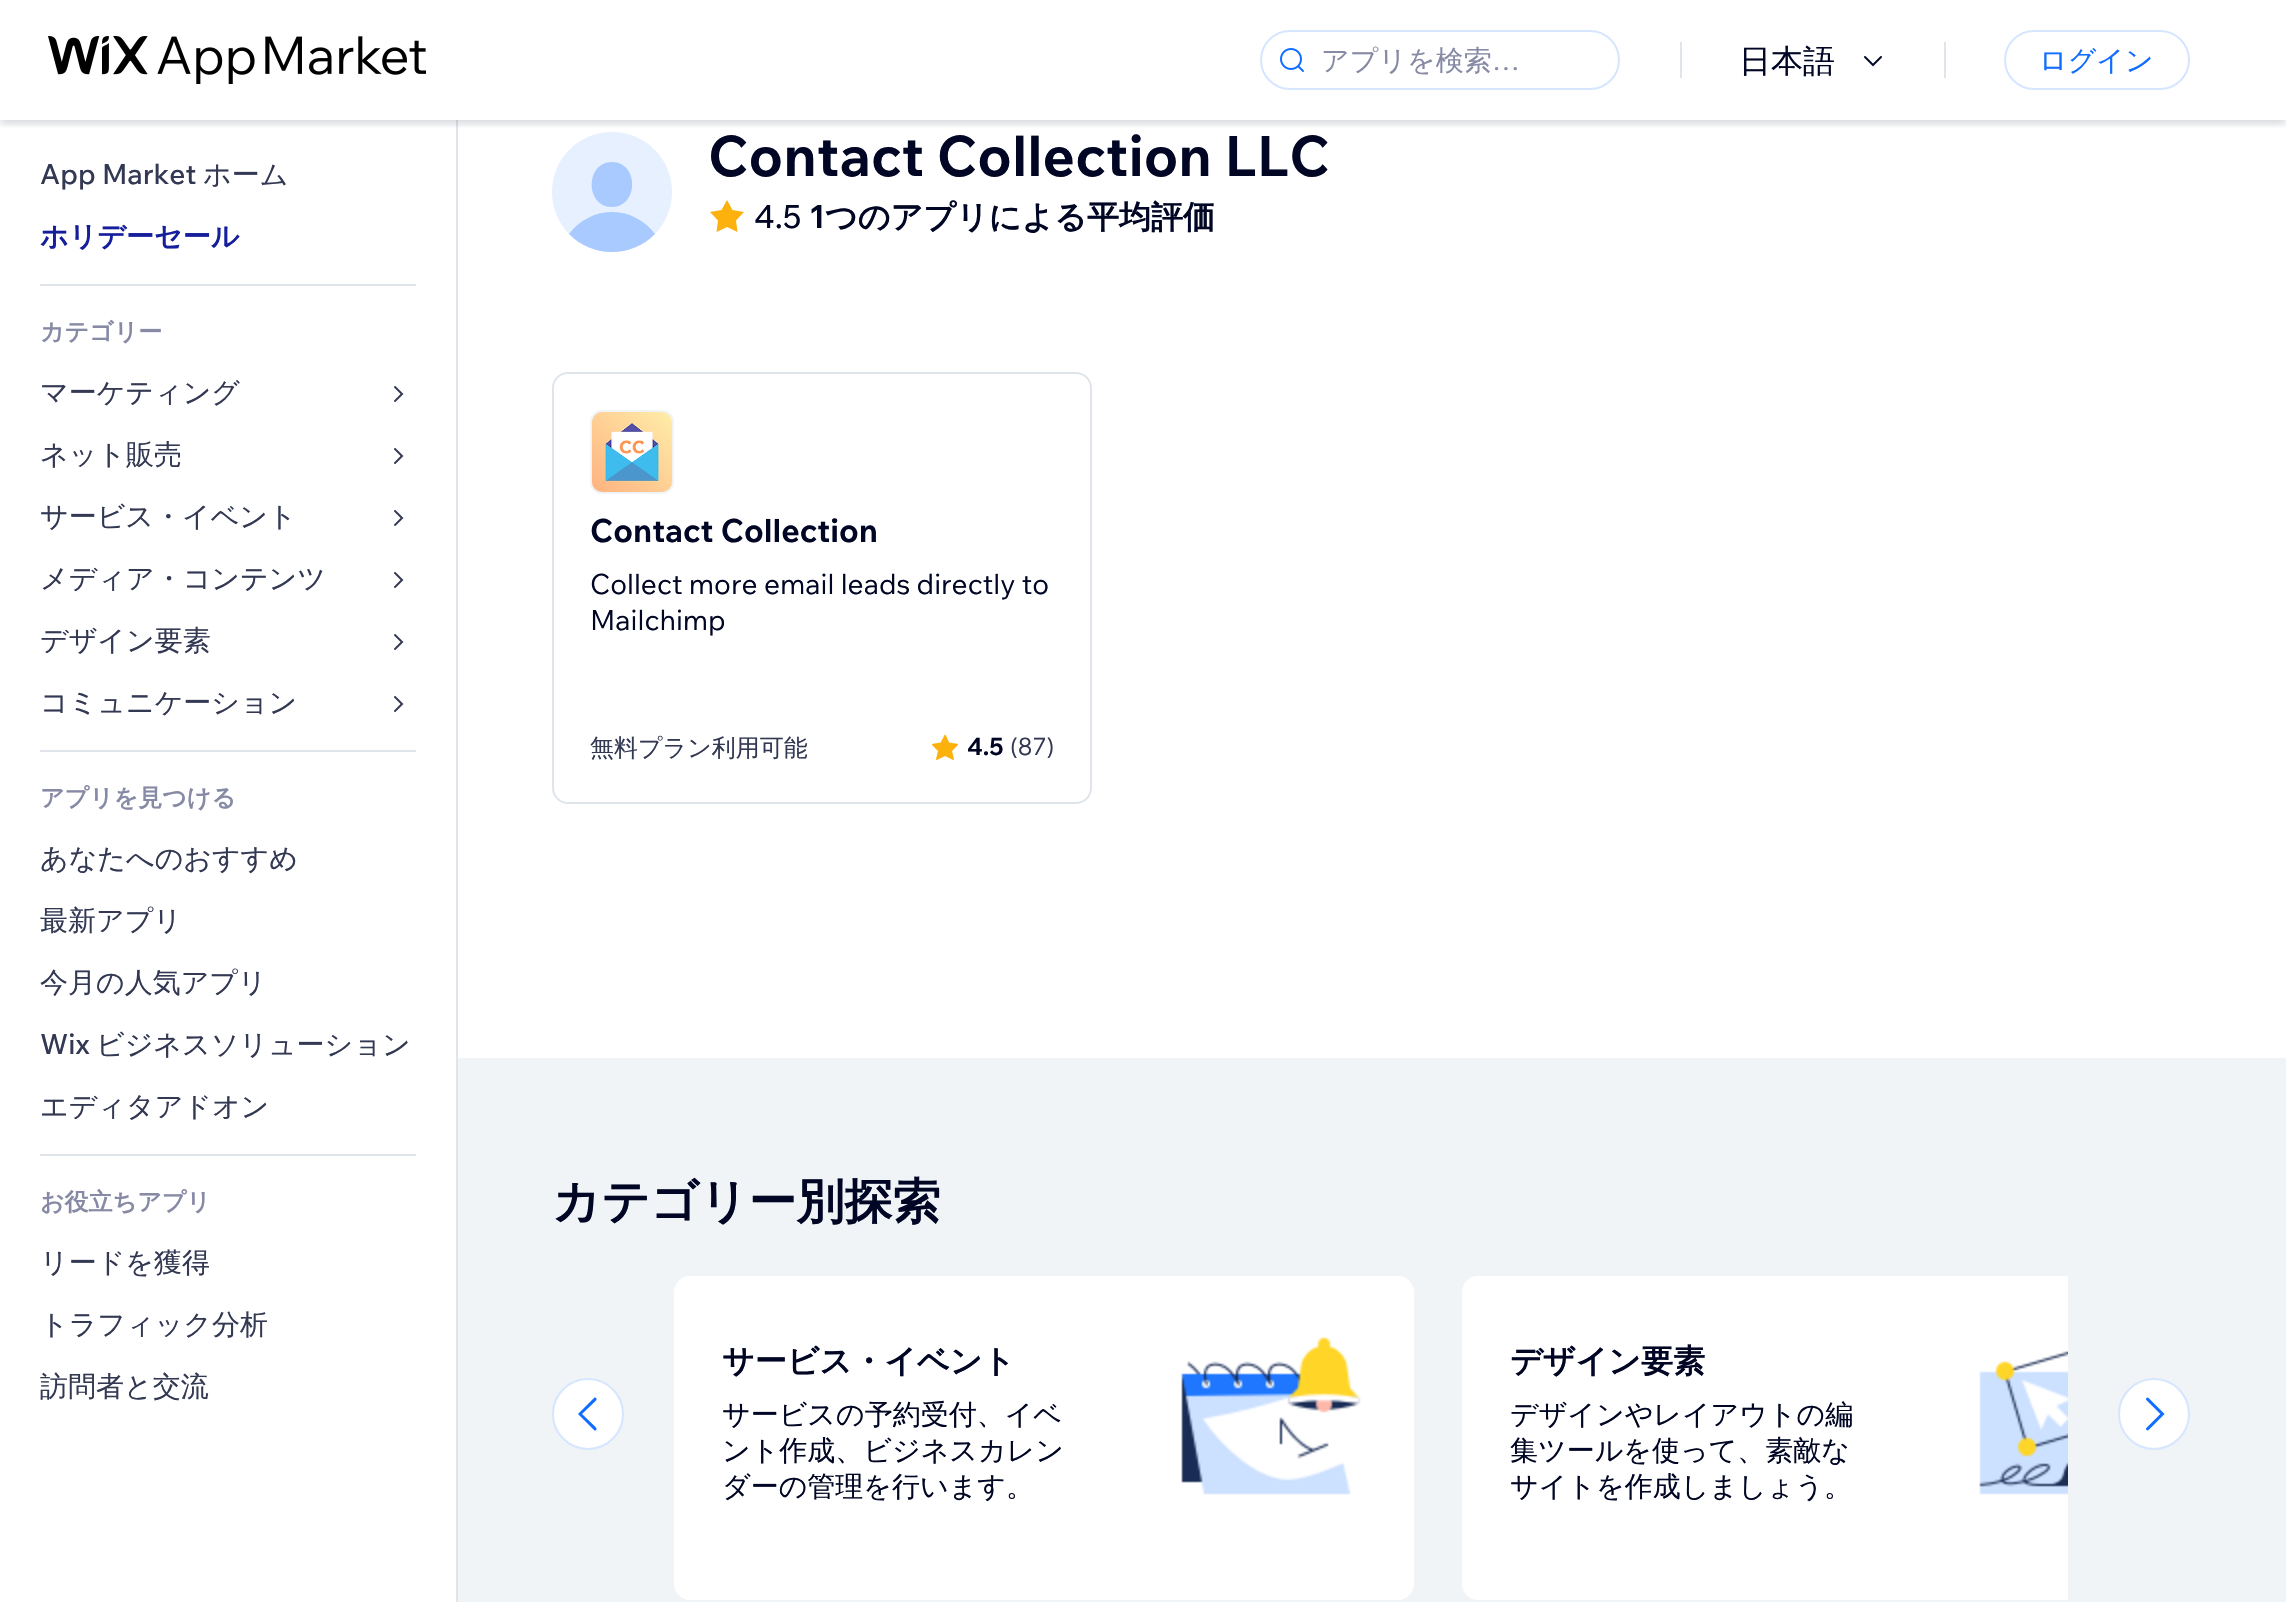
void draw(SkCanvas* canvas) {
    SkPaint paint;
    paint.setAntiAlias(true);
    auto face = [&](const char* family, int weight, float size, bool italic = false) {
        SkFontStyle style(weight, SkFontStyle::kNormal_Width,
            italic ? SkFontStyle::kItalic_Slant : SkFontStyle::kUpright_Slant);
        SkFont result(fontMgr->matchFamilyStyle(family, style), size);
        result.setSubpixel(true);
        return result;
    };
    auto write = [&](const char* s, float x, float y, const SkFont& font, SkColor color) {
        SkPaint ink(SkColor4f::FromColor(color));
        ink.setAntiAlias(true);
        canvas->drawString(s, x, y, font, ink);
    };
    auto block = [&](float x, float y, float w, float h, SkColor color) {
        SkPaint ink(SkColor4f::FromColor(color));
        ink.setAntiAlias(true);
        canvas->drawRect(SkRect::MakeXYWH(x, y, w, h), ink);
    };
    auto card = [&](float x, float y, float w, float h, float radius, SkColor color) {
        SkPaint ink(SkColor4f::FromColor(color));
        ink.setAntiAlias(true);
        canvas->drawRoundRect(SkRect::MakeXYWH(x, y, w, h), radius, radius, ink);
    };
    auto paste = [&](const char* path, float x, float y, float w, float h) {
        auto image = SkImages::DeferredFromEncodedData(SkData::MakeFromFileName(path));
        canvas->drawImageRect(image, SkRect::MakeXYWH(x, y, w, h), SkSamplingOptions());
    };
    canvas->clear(SK_ColorWHITE);
    block(456, 120, 2, 1482, SkColorSetRGB(223, 229, 235));
    paint.setColor(SkColorSetRGB(231, 240, 255));
    canvas->drawCircle(612, 192, 60, paint);
    canvas->save();
    canvas->clipRect(SkRect::MakeXYWH(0, 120, 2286, 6));
    paint.setColor(SkColorSetARGB(31, 22, 45, 61));
    paint.setMaskFilter(SkMaskFilter::MakeBlur(kNormal_SkBlurStyle, 6));
    canvas->drawRect(SkRect::MakeXYWH(0, 0, 2286, 120), paint);
    paint.setMaskFilter(nullptr);
    canvas->restore();
    canvas->save();
    canvas->clipRect(SkRect::MakeXYWH(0, 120, 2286, 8));
    paint.setMaskFilter(SkMaskFilter::MakeBlur(kNormal_SkBlurStyle, 4));
    canvas->drawRect(SkRect::MakeXYWH(0, 4, 2286, 120), paint);
    paint.setMaskFilter(nullptr);
    canvas->restore();
    paste("pic1.png", 48, 36, 378, 48);
    paint.setStyle(SkPaint::kStroke_Style);
    paint.setStrokeWidth(2);
    paint.setColor(SkColorSetRGB(214, 230, 254));
    canvas->drawRoundRect(SkRect::MakeXYWH(1261, 31, 358, 58), 29, 29, paint);
    paste("pic2.png", 1280, 48, 24, 24);
    auto kFont1 = face("WenQuanYi Zen Hei", 500, 28);
    write("アプリを検索", 1321, 70, kFont1, SkColorSetRGB(134, 138, 165));
    auto kFont2 = face("Wix Madefor Text", 400, 28);
    write("…", 1492, 70, kFont2, SkColorSetRGB(134, 138, 165));
    block(1680, 42, 2, 36, SkColorSetRGB(223, 229, 235));
    auto kFont3 = face("WenQuanYi Zen Hei", 500, 32);
    write("日本語", 1739, 72, kFont3, SkColorSetRGB(0, 6, 36));
    paste("pic3.png", 1864, 56, 18, 11);
    block(1944, 42, 2, 36, SkColorSetRGB(223, 229, 235));
    canvas->drawRoundRect(SkRect::MakeXYWH(2005, 31, 184, 58), 29, 29, paint);
    write("ログイン", 2039, 70, kFont1, SkColorSetRGB(17, 109, 255));
    auto kFont4 = face("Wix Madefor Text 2", 500, 28);
    write("App Market", 40, 184, kFont4, SkColorSetRGB(51, 56, 83));
    write("ホーム", 203, 184, kFont1, SkColorSetRGB(51, 56, 83));
    auto kFont5 = face("WenQuanYi Zen Hei", 700, 28);
    write("ホリデーセール", 40, 246, kFont5, SkColorSetRGB(21, 31, 156));
    block(40, 284, 376, 2, SkColorSetRGB(223, 229, 235));
    auto kFont6 = face("WenQuanYi Zen Hei", 700, 24);
    write("カテゴリー", 40, 340, kFont6, SkColorSetRGB(134, 138, 165));
    write("マーケティング", 40, 402, kFont1, SkColorSetRGB(51, 56, 83));
    paste("pic4.png", 394, 386, 10, 16);
    write("ネット販売", 40, 464, kFont1, SkColorSetRGB(51, 56, 83));
    paste("pic4.png", 394, 448, 10, 16);
    write("サービス・イベント", 40, 526, kFont1, SkColorSetRGB(51, 56, 83));
    paste("pic4.png", 394, 510, 10, 16);
    write("メディア・コンテンツ", 40, 588, kFont1, SkColorSetRGB(51, 56, 83));
    paste("pic4.png", 394, 572, 10, 16);
    write("デザイン要素", 40, 650, kFont1, SkColorSetRGB(51, 56, 83));
    paste("pic4.png", 394, 634, 10, 16);
    write("コミュニケーション", 40, 712, kFont1, SkColorSetRGB(51, 56, 83));
    paste("pic4.png", 394, 696, 10, 16);
    block(40, 750, 376, 2, SkColorSetRGB(223, 229, 235));
    write("アプリを見つける", 40, 806, kFont6, SkColorSetRGB(134, 138, 165));
    write("あなたへのおすすめ", 40, 868, kFont1, SkColorSetRGB(51, 56, 83));
    write("最新アプリ", 40, 930, kFont1, SkColorSetRGB(51, 56, 83));
    write("今月の人気アプリ", 40, 992, kFont1, SkColorSetRGB(51, 56, 83));
    write("Wix", 40, 1054, kFont4, SkColorSetRGB(51, 56, 83));
    write("ビジネスソリューション", 96, 1054, kFont1, SkColorSetRGB(51, 56, 83));
    write("エディタアドオン", 40, 1116, kFont1, SkColorSetRGB(51, 56, 83));
    block(40, 1154, 376, 2, SkColorSetRGB(223, 229, 235));
    write("お役立ちアプリ", 40, 1210, kFont6, SkColorSetRGB(134, 138, 165));
    write("リードを獲得", 40, 1272, kFont1, SkColorSetRGB(51, 56, 83));
    write("トラフィック分析", 40, 1334, kFont1, SkColorSetRGB(51, 56, 83));
    write("訪問者と交流", 40, 1396, kFont1, SkColorSetRGB(51, 56, 83));
    paint.setStyle(SkPaint::kFill_Style);
    paint.setColor(SkColorSetRGB(168, 202, 255));
    canvas->drawPath(SkPathBuilder(SkPathFillType::kEvenOdd).moveTo(612, 212).cubicTo(630, 212, 645, 221, 655, 234).cubicTo(631, 258, 593, 258, 569, 234).cubicTo(579, 221, 594, 212, 612, 212).close().moveTo(612, 162).cubicTo(585, 162, 585, 207, 612, 207).cubicTo(639, 207, 639, 162, 612, 162).close().detach(), paint);
    auto kFont7 = face("Wix Madefor Text", 700, 56);
    write("Contact Collection LLC", 708, 176, kFont7, SkColorSetRGB(0, 6, 36));
    paint.setColor(SkColorSetRGB(253, 177, 12));
    canvas->drawPath(SkPathBuilder().moveTo(727, 200).lineTo(721.5f, 210).lineTo(710, 212).lineTo(718, 220.5f).lineTo(716.5f, 232).lineTo(727, 227).lineTo(737.5f, 232).lineTo(736, 220.5f).lineTo(744, 212).lineTo(732.5f, 210).close().detach(), paint);
    auto kFont8 = face("Wix Madefor Text", 500, 32);
    write("4.5", 754, 228, kFont8, SkColorSetRGB(0, 6, 36));
    auto kFont9 = face("Wix Madefor Text", 700, 32);
    write("1", 809, 228, kFont9, SkColorSetRGB(0, 6, 36));
    auto kFont10 = face("WenQuanYi Zen Hei", 700, 32);
    write("つのアプリによる平均評価", 825, 228, kFont10, SkColorSetRGB(0, 6, 36));
    paint.setStyle(SkPaint::kStroke_Style);
    paint.setColor(SkColorSetRGB(223, 229, 235));
    canvas->drawRoundRect(SkRect::MakeXYWH(553, 373, 538, 430), 15, 15, paint);
    paint.setStyle(SkPaint::kFill_Style);
    paint.setColor(SkColorSetRGB(246, 247, 247));
    canvas->drawRoundRect(SkRect::MakeXYWH(591, 411, 82, 82), 11, 11, paint);
    paint.setStyle(SkPaint::kStroke_Style);
    paint.setColor(SkColorSetRGB(240, 244, 247));
    canvas->drawRoundRect(SkRect::MakeXYWH(591, 411, 82, 82), 11, 11, paint);
    paste("pic5.png", 592, 412, 80, 80);
    write("Contact Collection", 590, 542, kFont9, SkColorSetRGB(0, 6, 36));
    write("Collect more email leads directly to", 590, 594, kFont2, SkColorSetRGB(0, 6, 36));
    write("Mailchimp", 590, 630, kFont2, SkColorSetRGB(0, 6, 36));
    auto kFont11 = face("WenQuanYi Zen Hei", 500, 24);
    write("無料プラン利用可能", 590, 756, kFont11, SkColorSetRGB(51, 56, 83));
    paste("pic6.png", 932, 734, 26, 26);
    auto kFont12 = face("Wix Madefor Text", 700, 24);
    write("4.5", 967, 755, kFont12, SkColorSetRGB(0, 6, 36));
    auto kFont13 = face("Wix Madefor Text", 400, 24);
    write("(87)", 1010, 755, kFont13, SkColorSetRGB(51, 56, 83));
    block(458, 1058, 1828, 544, SkColorSetRGB(240, 244, 247));
    auto kFont14 = face("WenQuanYi Zen Hei", 700, 48);
    write("カテゴリー別探索", 552, 1218, kFont14, SkColorSetRGB(0, 6, 36));
    paint.setStyle(SkPaint::kFill_Style);
    paint.setColor(SK_ColorWHITE);
    canvas->drawCircle(588, 1414, 35, paint);
    paint.setStyle(SkPaint::kStroke_Style);
    paint.setColor(SkColorSetRGB(214, 230, 254));
    canvas->drawCircle(588, 1414, 35, paint);
    paint.setStyle(SkPaint::kFill_Style);
    paint.setColor(SkColorSetRGB(17, 109, 255));
    canvas->drawPath(SkPathBuilder().moveTo(582, 1414).lineTo(594, 1425.5f).cubicTo(594.5f, 1426, 598.5f, 1429, 595.5f, 1430.5f).lineTo(594.5f, 1430.5f).lineTo(578, 1414).lineTo(594.5f, 1397.5f).lineTo(595.5f, 1397.5f).cubicTo(598.5f, 1399, 594.5f, 1402, 594, 1402.5f).close().detach(), paint);
    card(674, 1276, 740, 324, 16, SK_ColorWHITE);
    write("サービス・イベント", 722, 1372, kFont10, SkColorSetRGB(0, 6, 36));
    write("サービスの予約受付、イベ", 722, 1424, kFont1, SkColorSetRGB(0, 6, 36));
    write("ント作成、ビジネスカレン", 722, 1460, kFont1, SkColorSetRGB(0, 6, 36));
    write("ダーの管理を行います。", 722, 1496, kFont1, SkColorSetRGB(0, 6, 36));
    paste("pic7.png", 1181, 1337, 180, 158);
    paint.setColor(SK_ColorWHITE);
    canvas->drawPath(SkPathBuilder().moveTo(1478, 1276).lineTo(2068, 1276).lineTo(2068, 1600).lineTo(1478, 1600).cubicTo(1469, 1600, 1462, 1593, 1462, 1584).lineTo(1462, 1292).cubicTo(1462, 1283, 1469, 1276, 1478, 1276).close().detach(), paint);
    write("デザイン要素", 1510, 1372, kFont10, SkColorSetRGB(0, 6, 36));
    write("デザインやレイアウトの編", 1510, 1424, kFont1, SkColorSetRGB(0, 6, 36));
    write("集ツールを使って、素敵な", 1510, 1460, kFont1, SkColorSetRGB(0, 6, 36));
    write("サイトを作成しましょう。", 1510, 1496, kFont1, SkColorSetRGB(0, 6, 36));
    paste("pic8.png", 1979, 1351, 89, 144);
    canvas->drawCircle(2154, 1414, 35, paint);
    paint.setStyle(SkPaint::kStroke_Style);
    paint.setColor(SkColorSetRGB(214, 230, 254));
    canvas->drawCircle(2154, 1414, 35, paint);
    paste("pic9.png", 2146, 1397, 19, 34);
}
